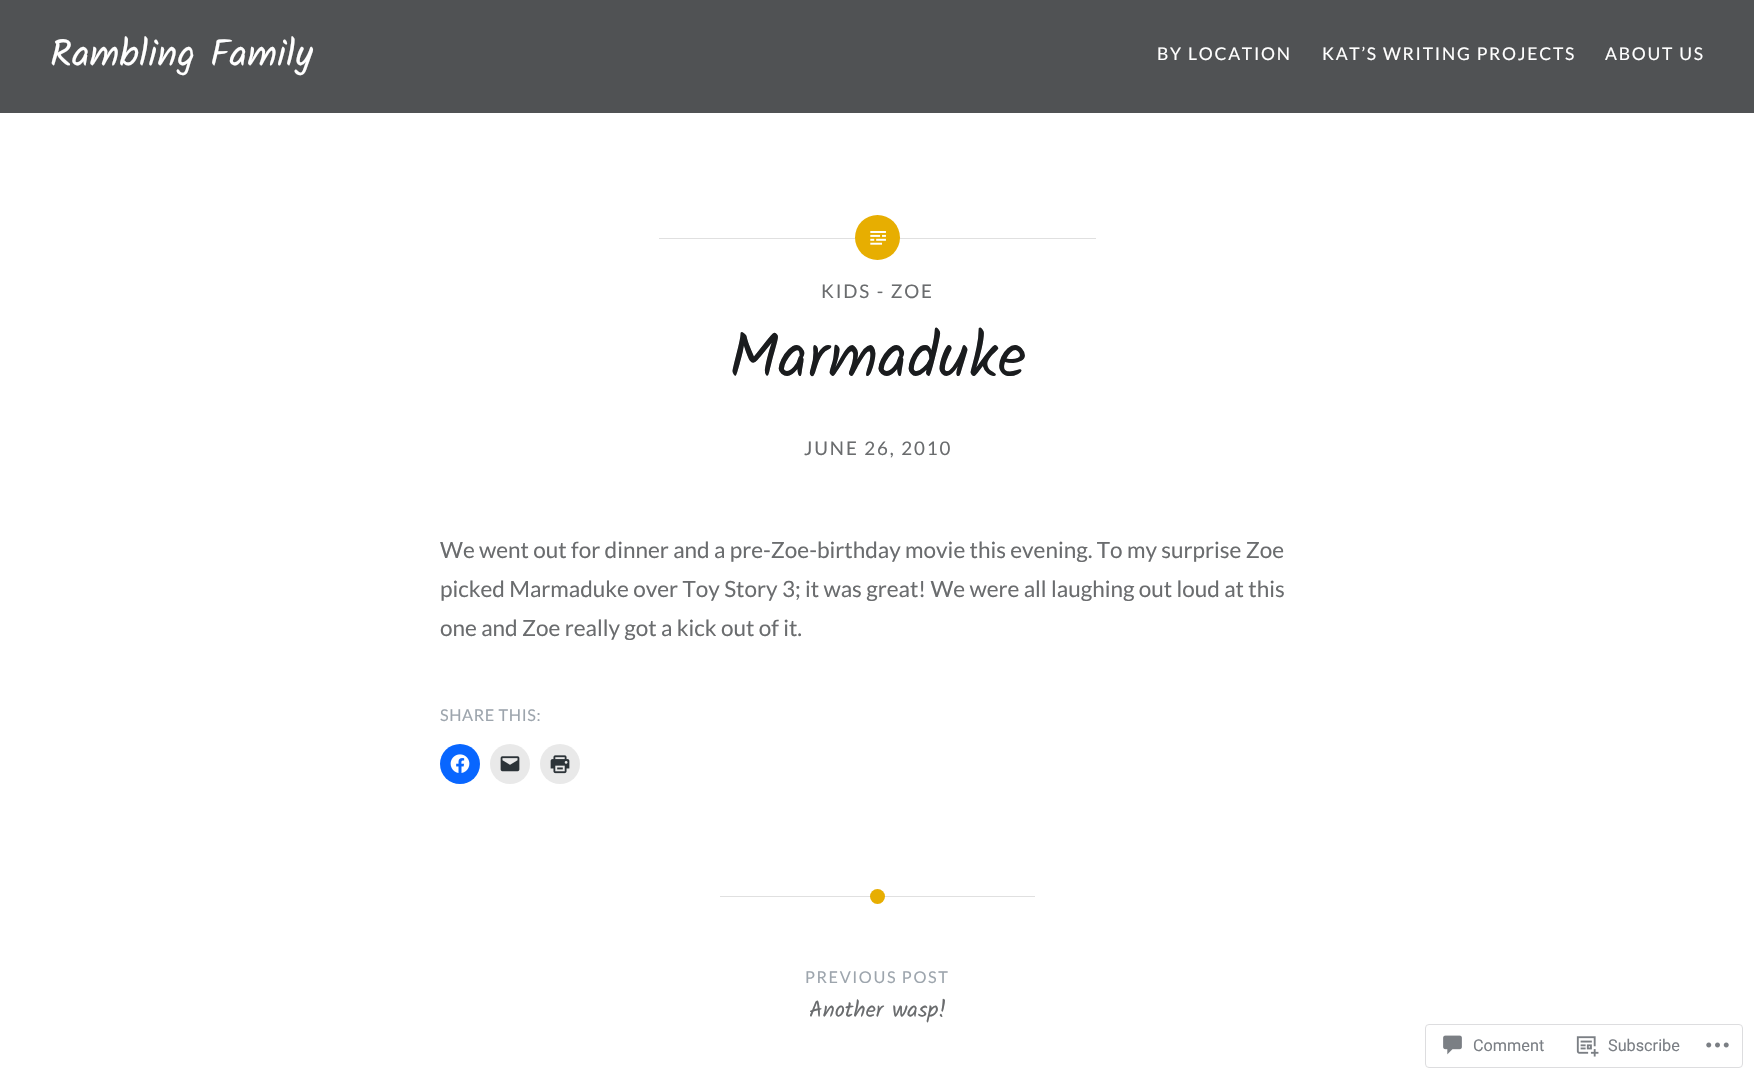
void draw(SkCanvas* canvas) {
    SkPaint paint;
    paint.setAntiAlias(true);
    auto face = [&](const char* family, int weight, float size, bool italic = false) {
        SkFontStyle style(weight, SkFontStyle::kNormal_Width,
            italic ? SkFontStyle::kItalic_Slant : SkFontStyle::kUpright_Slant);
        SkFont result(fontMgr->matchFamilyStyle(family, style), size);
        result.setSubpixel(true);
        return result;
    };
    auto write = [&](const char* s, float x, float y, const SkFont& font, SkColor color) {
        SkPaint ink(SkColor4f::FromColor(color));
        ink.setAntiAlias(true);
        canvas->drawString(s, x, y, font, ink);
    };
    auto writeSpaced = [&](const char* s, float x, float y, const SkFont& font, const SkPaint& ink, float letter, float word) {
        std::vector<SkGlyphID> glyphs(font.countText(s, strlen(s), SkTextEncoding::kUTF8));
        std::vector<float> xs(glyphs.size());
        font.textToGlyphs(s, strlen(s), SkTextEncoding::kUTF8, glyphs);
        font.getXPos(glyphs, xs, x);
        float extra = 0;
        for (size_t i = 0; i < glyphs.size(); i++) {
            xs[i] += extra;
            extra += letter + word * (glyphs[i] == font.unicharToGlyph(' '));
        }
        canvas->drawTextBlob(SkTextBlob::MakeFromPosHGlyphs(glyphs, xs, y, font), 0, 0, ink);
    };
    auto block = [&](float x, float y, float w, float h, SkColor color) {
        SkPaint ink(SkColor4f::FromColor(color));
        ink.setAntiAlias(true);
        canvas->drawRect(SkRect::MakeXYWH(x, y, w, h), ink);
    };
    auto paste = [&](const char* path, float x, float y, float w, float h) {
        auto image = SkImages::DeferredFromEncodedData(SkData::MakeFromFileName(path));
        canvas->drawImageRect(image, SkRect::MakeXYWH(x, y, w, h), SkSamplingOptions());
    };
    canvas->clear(SK_ColorWHITE);
    block(0, 0, 1754, 113, SkColorSetRGB(80, 82, 84));
    auto kFont1 = face("Kalam", 400, 37.5f);
    write("Rambling Family", 50, 66, kFont1, SK_ColorWHITE);
    auto kFont2 = face("Lato", 400, 17.5f);
    paint.setColor(SK_ColorWHITE);
    writeSpaced("BY LOCATION", 1157, 60, kFont2, paint, 1.75f, 0);
    writeSpaced("KAT’S WRITING PROJECTS", 1322, 60, kFont2, paint, 1.75f, 0);
    writeSpaced("ABOUT US", 1605, 60, kFont2, paint, 1.75f, 0);
    block(659, 238, 437, 1, SkColorSetRGB(224, 224, 224));
    paint.setColor(SkColorSetRGB(231, 174, 1));
    canvas->drawCircle(877.5f, 237.5f, 22.5f, paint);
    paste("pic1.png", 870, 231, 16, 14);
    auto kFont3 = face("Lato", 400, 18.75f);
    paint.setColor(SkColorSetRGB(106, 108, 110));
    writeSpaced("KIDS - ZOE", 821, 298, kFont3, paint, 1.9f, 0);
    auto kFont4 = face("Kalam", 400, 62.5f);
    write("Marmaduke", 729, 377, kFont4, SkColorSetRGB(26, 28, 30));
    writeSpaced("JUNE 26, 2010", 804, 455, kFont3, paint, 1.9f, 0);
    auto kFont5 = face("Lato", 400, 22.5f);
    write("We went out for dinner and a pre-Zoe-birthday movie this evening. To my surprise Zoe", 440, 558, kFont5, SkColorSetRGB(106, 108, 110));
    write("picked Marmaduke over Toy Story 3; it was great! We were all laughing out loud at this", 440, 597, kFont5, SkColorSetRGB(106, 108, 110));
    write("one and Zoe really got a kick out of it.", 440, 636, kFont5, SkColorSetRGB(106, 108, 110));
    auto kFont6 = face("Lato", 400, 16.25f);
    paint.setColor(SkColorSetRGB(157, 165, 173));
    writeSpaced("SHARE THIS:", 440, 721, kFont6, paint, 0.6f, 0);
    paint.setColor(SkColorSetRGB(8, 102, 255));
    canvas->drawCircle(460, 764, 20, paint);
    paste("pic2.png", 450, 754, 20, 19);
    paint.setColor(SkColorSetRGB(233, 233, 233));
    canvas->drawCircle(510, 764, 20, paint);
    paste("pic3.png", 500, 756, 20, 16);
    canvas->drawCircle(560, 764, 20, paint);
    paste("pic4.png", 550, 755, 20, 19);
    block(720, 896, 315, 1, SkColorSetRGB(224, 224, 224));
    paint.setColor(SkColorSetRGB(231, 174, 1));
    canvas->drawCircle(877.5f, 896.5f, 7.5f, paint);
    paint.setColor(SkColorSetRGB(157, 165, 173));
    writeSpaced("PREVIOUS POST", 805, 983, kFont6, paint, 1.6f, 0);
    auto kFont7 = face("Kalam", 400, 22.5f);
    write("Another wasp!", 809, 1017, kFont7, SkColorSetRGB(106, 108, 110));
    paint.setStyle(SkPaint::kStroke_Style);
    paint.setStrokeWidth(1);
    paint.setColor(SkColorSetRGB(221, 221, 223));
    canvas->drawRoundRect(SkRect::MakeXYWH(1425.5f, 1024.5f, 317, 43), 3.5f, 3.5f, paint);
    paste("pic5.png", 1443, 1035, 19, 20);
    auto kFont8 = face("Roboto", 400, 16.25f);
    write("Comment", 1473, 1051, kFont8, SkColorSetRGB(123, 127, 133));
    paste("pic6.png", 1576, 1036, 23, 21);
    write("Subscribe", 1608, 1051, kFont8, SkColorSetRGB(123, 127, 133));
    paste("pic7.png", 1706, 1042, 23, 6);
}
